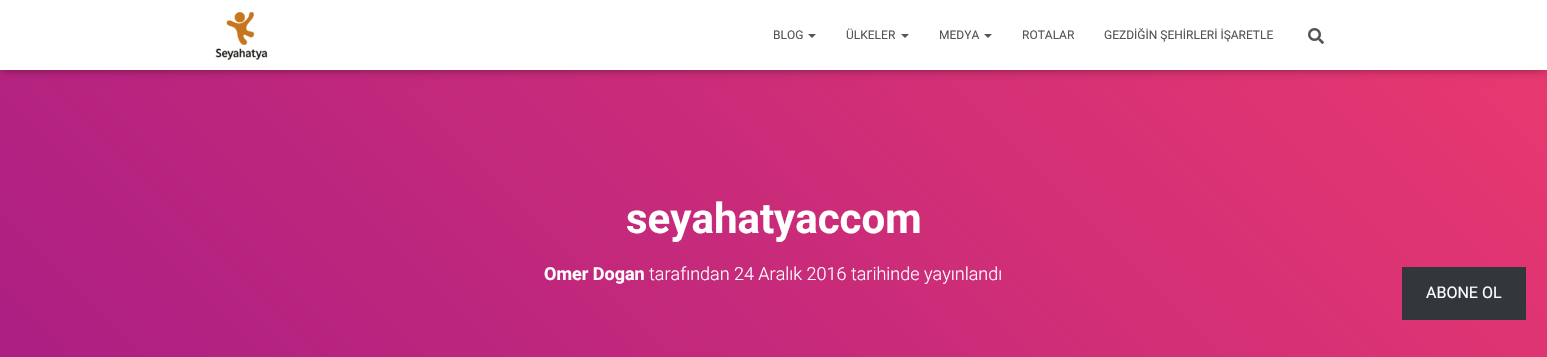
void draw(SkCanvas* canvas) {
    SkPaint paint;
    paint.setAntiAlias(true);
    auto face = [&](const char* family, int weight, float size, bool italic = false) {
        SkFontStyle style(weight, SkFontStyle::kNormal_Width,
            italic ? SkFontStyle::kItalic_Slant : SkFontStyle::kUpright_Slant);
        SkFont result(fontMgr->matchFamilyStyle(family, style), size);
        result.setSubpixel(true);
        return result;
    };
    auto write = [&](const char* s, float x, float y, const SkFont& font, SkColor color) {
        SkPaint ink(SkColor4f::FromColor(color));
        ink.setAntiAlias(true);
        canvas->drawString(s, x, y, font, ink);
    };
    auto block = [&](float x, float y, float w, float h, SkColor color) {
        SkPaint ink(SkColor4f::FromColor(color));
        ink.setAntiAlias(true);
        canvas->drawRect(SkRect::MakeXYWH(x, y, w, h), ink);
    };
    auto paste = [&](const char* path, float x, float y, float w, float h) {
        auto image = SkImages::DeferredFromEncodedData(SkData::MakeFromFileName(path));
        canvas->drawImageRect(image, SkRect::MakeXYWH(x, y, w, h), SkSamplingOptions());
    };
    canvas->clear(SK_ColorWHITE);
    {
        const SkColor colors[] = {SkColorSetRGB(168, 29, 132), SkColorSetRGB(234, 57, 111)};
        const float stops[] = {0, 1};
        const SkPoint ends[] = {{270, 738}, {1277, -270}};
        paint.setShader(SkGradientShader::MakeLinear(ends, colors, stops, 2, SkTileMode::kClamp));
        paint.setAlpha(255);
    }
    canvas->drawRect(SkRect::MakeXYWH(0, 70, 1547, 287), paint);
    paint.setShader(nullptr);
    paint.setColor(SkColorSetARGB(26, 0, 0, 0));
    paint.setMaskFilter(SkMaskFilter::MakeBlur(kNormal_SkBlurStyle, 2.5f));
    canvas->drawRect(SkRect::MakeXYWH(2, 6, 1543, 66), paint);
    paint.setMaskFilter(nullptr);
    paint.setColor(SkColorSetARGB(31, 0, 0, 0));
    paint.setMaskFilter(SkMaskFilter::MakeBlur(kNormal_SkBlurStyle, 5));
    canvas->drawRect(SkRect::MakeXYWH(0, 1, 1547, 70), paint);
    paint.setMaskFilter(nullptr);
    paint.setColor(SkColorSetARGB(107, 0, 0, 0));
    paint.setMaskFilter(SkMaskFilter::MakeBlur(kNormal_SkBlurStyle, 5));
    canvas->drawRect(SkRect::MakeXYWH(6, 7, 1535, 58), paint);
    paint.setMaskFilter(nullptr);
    block(0, 0, 1547, 70, SK_ColorWHITE);
    paste("pic1.png", 215, 12, 53, 48);
    auto kFont1 = face("Roboto", 400, 12);
    write("BLOG", 773, 39, kFont1, SkColorSetRGB(85, 85, 85));
    paint.setColor(SkColorSetRGB(85, 85, 85));
    canvas->drawPath(SkPathBuilder().moveTo(808, 34).lineTo(816, 34).lineTo(812, 38).close().detach(), paint);
    write("ÜLKELER", 846, 39, kFont1, SkColorSetRGB(85, 85, 85));
    canvas->drawPath(SkPathBuilder().moveTo(901, 34).lineTo(909, 34).lineTo(905, 38).close().detach(), paint);
    write("MEDYA", 939, 39, kFont1, SkColorSetRGB(85, 85, 85));
    canvas->drawPath(SkPathBuilder().moveTo(984, 34).lineTo(992, 34).lineTo(988, 38).close().detach(), paint);
    write("ROTALAR", 1022, 39, kFont1, SkColorSetRGB(85, 85, 85));
    write("GEZDİĞİN ŞEHİRLERİ İŞARETLE", 1104, 39, kFont1, SkColorSetRGB(85, 85, 85));
    paste("pic2.png", 1308, 28, 16, 16);
    auto kFont2 = face("Roboto", 700, 42);
    write("seyahatyaccom", 626, 233, kFont2, SK_ColorWHITE);
    auto kFont3 = face("Roboto", 700, 18);
    write("Omer Dogan", 544, 280, kFont3, SK_ColorWHITE);
    auto kFont4 = face("Roboto", 300, 18);
    write("tarafından 24 Aralık 2016 tarihinde yayınlandı", 649, 280, kFont4, SK_ColorWHITE);
    block(1402, 267, 124, 53, SkColorSetRGB(50, 55, 60));
    auto kFont5 = face("Roboto", 400, 16);
    write("ABONE OL", 1426, 298, kFont5, SK_ColorWHITE);
}
